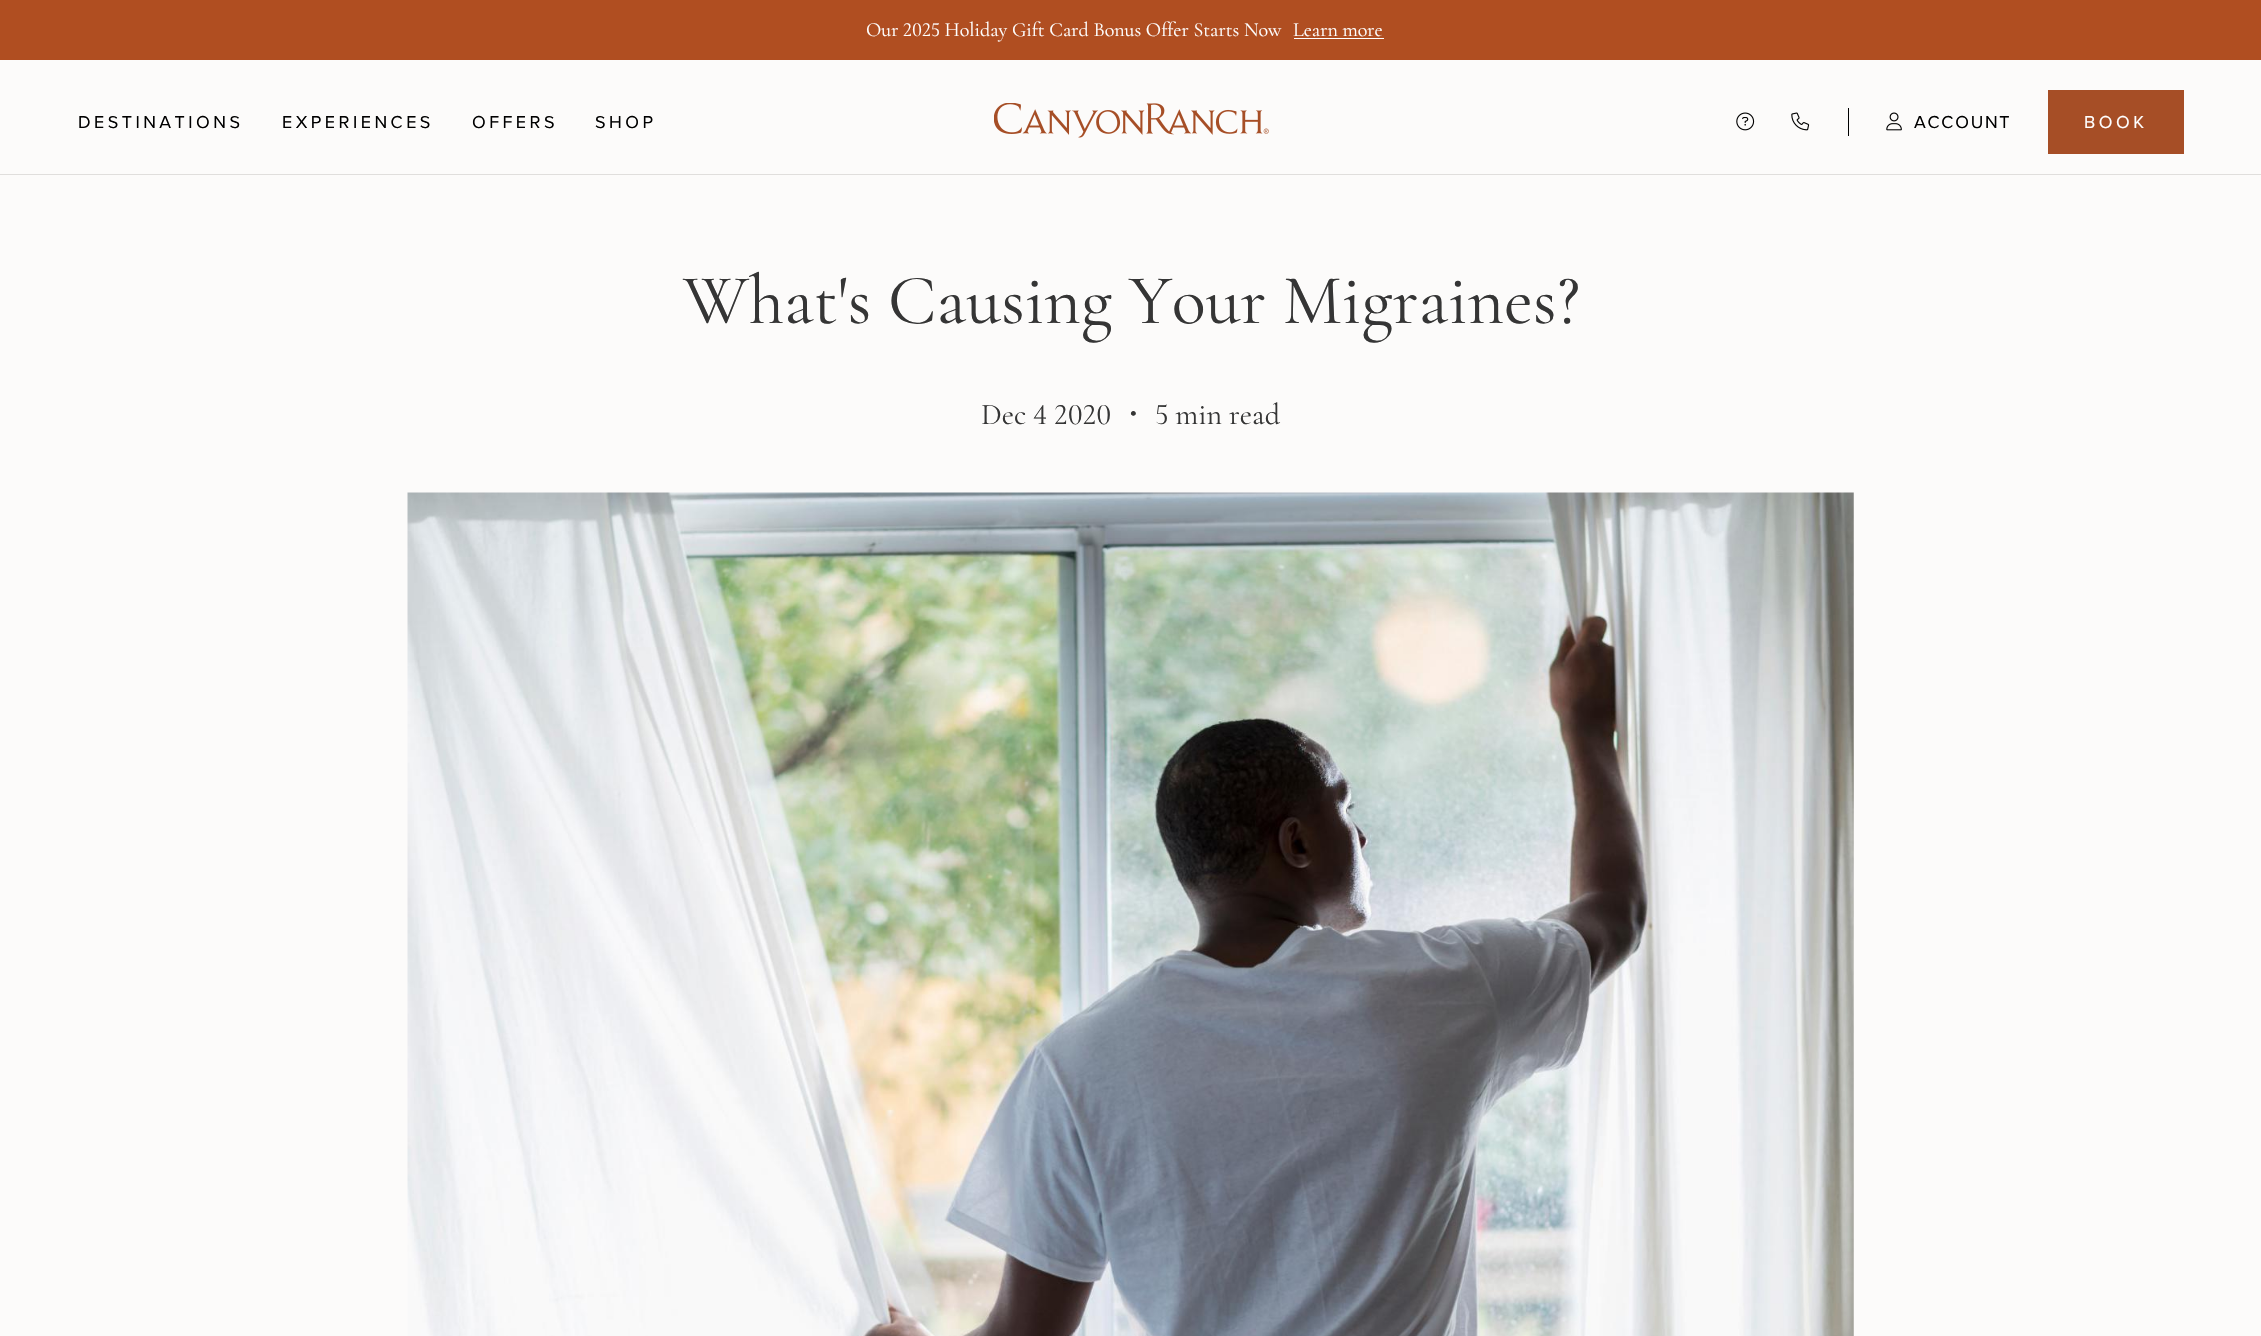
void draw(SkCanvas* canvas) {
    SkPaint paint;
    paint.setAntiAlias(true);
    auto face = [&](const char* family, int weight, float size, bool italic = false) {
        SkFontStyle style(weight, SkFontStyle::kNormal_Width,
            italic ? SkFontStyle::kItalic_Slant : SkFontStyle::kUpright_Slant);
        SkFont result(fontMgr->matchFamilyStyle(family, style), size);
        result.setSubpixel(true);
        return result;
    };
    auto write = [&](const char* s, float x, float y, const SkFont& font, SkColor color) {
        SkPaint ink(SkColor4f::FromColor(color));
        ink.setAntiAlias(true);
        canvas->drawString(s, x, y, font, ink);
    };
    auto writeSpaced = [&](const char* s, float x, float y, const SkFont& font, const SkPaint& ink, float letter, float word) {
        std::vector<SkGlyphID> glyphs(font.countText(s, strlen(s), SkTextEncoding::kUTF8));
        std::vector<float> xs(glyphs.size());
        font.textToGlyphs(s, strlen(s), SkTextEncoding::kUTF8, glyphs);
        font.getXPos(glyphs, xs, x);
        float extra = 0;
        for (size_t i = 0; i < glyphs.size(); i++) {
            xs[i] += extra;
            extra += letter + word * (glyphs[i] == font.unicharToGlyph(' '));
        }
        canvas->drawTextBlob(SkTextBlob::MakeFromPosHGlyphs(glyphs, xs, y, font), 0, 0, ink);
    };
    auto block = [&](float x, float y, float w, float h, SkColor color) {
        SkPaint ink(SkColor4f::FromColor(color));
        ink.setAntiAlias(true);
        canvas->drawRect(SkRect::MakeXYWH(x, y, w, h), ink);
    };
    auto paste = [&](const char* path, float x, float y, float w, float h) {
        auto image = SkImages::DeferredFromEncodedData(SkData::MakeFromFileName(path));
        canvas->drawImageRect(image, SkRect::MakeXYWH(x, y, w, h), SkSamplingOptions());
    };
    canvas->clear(SkColorSetRGB(252, 251, 250));
    block(0, 174, 2261, 1, SkColorSetRGB(224, 222, 220));
    block(0, 0, 2261, 60, SkColorSetRGB(176, 78, 33));
    auto kFont1 = face("Cormorant Garamond", 400, 20);
    write("Our 2025 Holiday Gift Card Bonus Offer Starts Now", 866, 36, kFont1, SK_ColorWHITE);
    write("Learn more", 1293, 36, kFont1, SK_ColorWHITE);
    block(1294, 38, 90, 1, SK_ColorWHITE);
    auto kFont2 = face("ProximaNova", 400, 17.9f);
    paint.setColor(SK_ColorBLACK);
    writeSpaced("DESTINATIONS", 78, 128, kFont2, paint, 3.5f, 0);
    writeSpaced("EXPERIENCES", 282, 128, kFont2, paint, 3.5f, 0);
    writeSpaced("OFFERS", 472, 128, kFont2, paint, 3.5f, 0);
    writeSpaced("SHOP", 595, 128, kFont2, paint, 3.5f, 0);
    paste("pic1.png", 994, 103, 275, 35);
    paste("pic2.png", 1736, 112, 19, 19);
    paste("pic3.png", 1791, 112, 19, 19);
    block(1848, 108, 1, 28, SK_ColorBLACK);
    paste("pic4.png", 1886, 112, 16, 19);
    writeSpaced("ACCOUNT", 1914, 128, kFont2, paint, 1.75f, 0);
    block(2048, 90, 136, 64, SkColorSetRGB(166, 78, 38));
    paint.setColor(SK_ColorWHITE);
    writeSpaced("BOOK", 2084, 128, kFont2, paint, 3.5f, 0);
    auto kFont3 = face("Cormorant Garamond", 400, 70.75f);
    write("What's Causing Your Migraines?", 683, 323, kFont3, SkColorSetRGB(53, 53, 53));
    auto kFont4 = face("Cormorant Garamond", 400, 30);
    write("Dec 4 2020", 981, 424, kFont4, SkColorSetRGB(53, 53, 53));
    auto kFont5 = face("WenQuanYi Zen Hei", 500, 30);
    write("・", 1118, 424, kFont5, SkColorSetRGB(53, 53, 53));
    write("5 min read", 1155, 424, kFont4, SkColorSetRGB(53, 53, 53));
    paste("pic5.png", 407, 492, 1447, 844);
}
